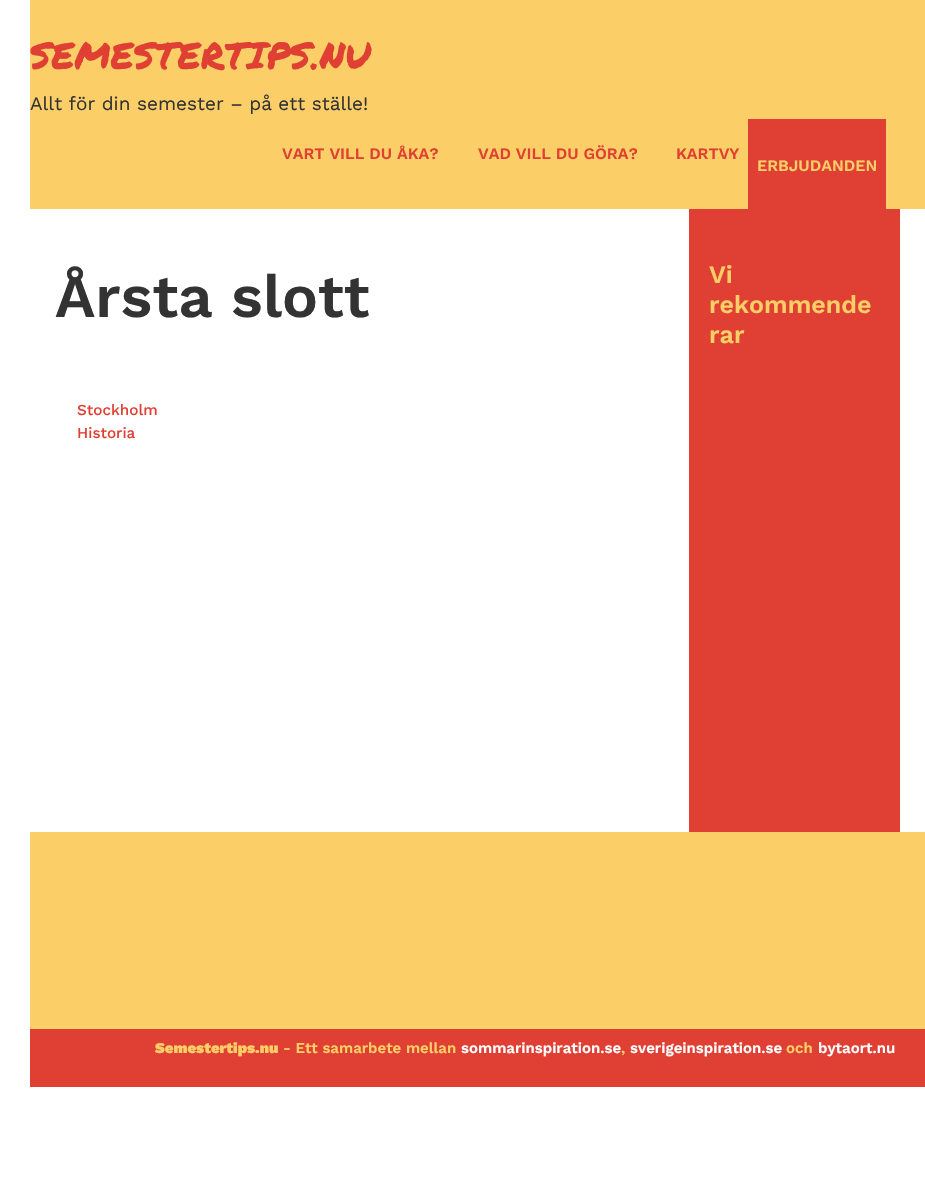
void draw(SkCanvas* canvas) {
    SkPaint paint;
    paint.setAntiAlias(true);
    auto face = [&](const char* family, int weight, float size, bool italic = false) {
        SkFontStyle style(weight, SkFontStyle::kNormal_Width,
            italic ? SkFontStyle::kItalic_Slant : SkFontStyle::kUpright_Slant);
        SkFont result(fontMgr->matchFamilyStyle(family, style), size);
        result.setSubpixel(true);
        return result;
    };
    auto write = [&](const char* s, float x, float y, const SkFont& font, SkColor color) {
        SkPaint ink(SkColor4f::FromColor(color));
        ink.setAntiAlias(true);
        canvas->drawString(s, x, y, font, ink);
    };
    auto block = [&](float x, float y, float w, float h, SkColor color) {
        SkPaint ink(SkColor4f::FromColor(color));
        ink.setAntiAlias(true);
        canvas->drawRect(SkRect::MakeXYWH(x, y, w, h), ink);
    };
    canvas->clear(SK_ColorWHITE);
    block(30, 0, 895, 209, SkColorSetRGB(251, 206, 103));
    auto kFont1 = face("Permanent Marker", 400, 37);
    write("SEMESTERTIPS.NU", 30, 69, kFont1, SkColorSetRGB(224, 63, 51));
    auto kFont2 = face("Work Sans", 400, 19);
    write("Allt för din semester – på ett ställe!", 30, 110, kFont2, SkColorSetRGB(51, 51, 51));
    auto kFont3 = face("Work Sans", 600, 16);
    write("VART VILL DU ÅKA?", 282, 159, kFont3, SkColorSetRGB(224, 63, 51));
    write("VAD VILL DU GÖRA?", 478, 159, kFont3, SkColorSetRGB(224, 63, 51));
    write("KARTVY", 676, 159, kFont3, SkColorSetRGB(224, 63, 51));
    block(748, 119, 138, 90, SkColorSetRGB(224, 63, 51));
    write("ERBJUDANDEN", 757, 171, kFont3, SkColorSetRGB(251, 206, 103));
    auto kFont4 = face("Work Sans", 600, 60);
    write("Årsta slott", 55, 317, kFont4, SkColorSetRGB(51, 51, 51));
    auto kFont5 = face("Work Sans", 500, 15.25f);
    write("Stockholm", 77, 415, kFont5, SkColorSetRGB(224, 63, 51));
    write("Historia", 77, 438, kFont5, SkColorSetRGB(224, 63, 51));
    block(689, 209, 211, 623, SkColorSetRGB(224, 63, 51));
    auto kFont6 = face("Work Sans", 600, 25);
    write("Vi", 709, 283, kFont6, SkColorSetRGB(251, 206, 103));
    write("rekommende", 709, 313, kFont6, SkColorSetRGB(251, 206, 103));
    write("rar", 709, 343, kFont6, SkColorSetRGB(251, 206, 103));
    block(30, 832, 895, 197, SkColorSetRGB(251, 206, 103));
    block(30, 1029, 895, 58, SkColorSetRGB(224, 63, 51));
    auto kFont7 = face("Work Sans", 900, 15);
    write("Semestertips.nu", 155, 1053, kFont7, SkColorSetRGB(251, 206, 103));
    auto kFont8 = face("Work Sans", 600, 15);
    write("- Ett samarbete mellan", 283, 1053, kFont8, SkColorSetRGB(251, 206, 103));
    write("sommarinspiration.se", 461, 1053, kFont8, SK_ColorWHITE);
    write(",", 621, 1053, kFont8, SkColorSetRGB(251, 206, 103));
    write("sverigeinspiration.se", 630, 1053, kFont8, SK_ColorWHITE);
    write("och", 786, 1053, kFont8, SkColorSetRGB(251, 206, 103));
    write("bytaort.nu", 818, 1053, kFont8, SK_ColorWHITE);
}
